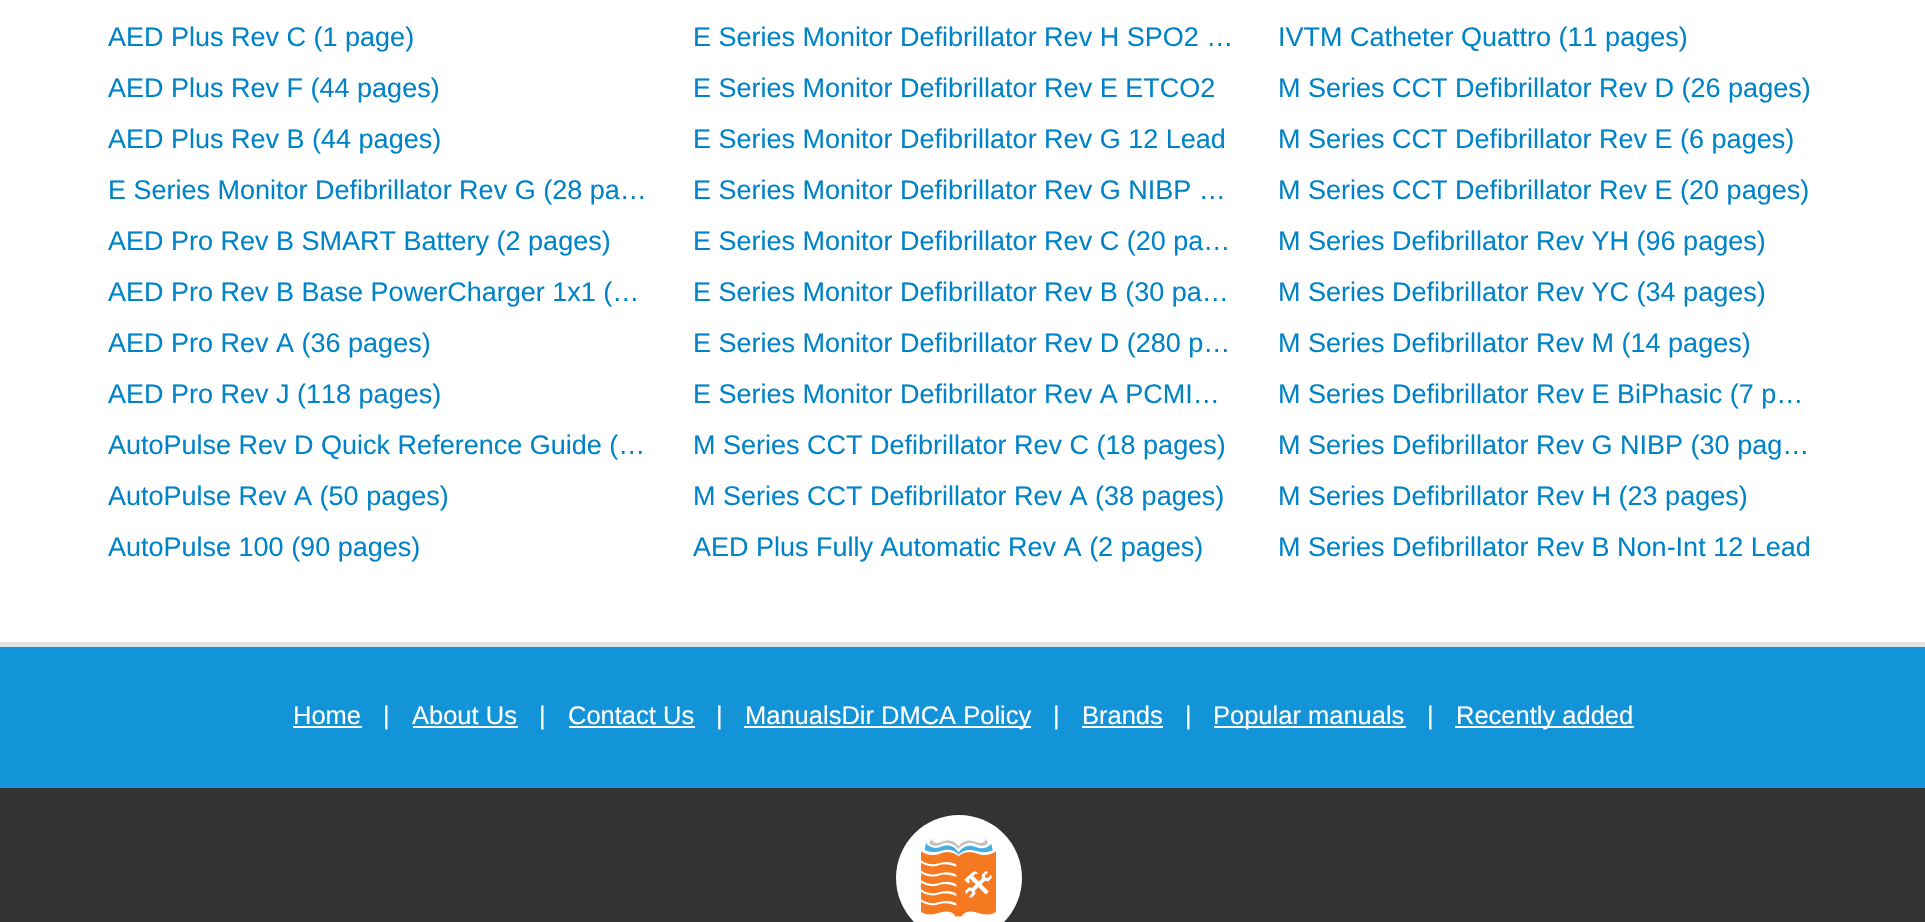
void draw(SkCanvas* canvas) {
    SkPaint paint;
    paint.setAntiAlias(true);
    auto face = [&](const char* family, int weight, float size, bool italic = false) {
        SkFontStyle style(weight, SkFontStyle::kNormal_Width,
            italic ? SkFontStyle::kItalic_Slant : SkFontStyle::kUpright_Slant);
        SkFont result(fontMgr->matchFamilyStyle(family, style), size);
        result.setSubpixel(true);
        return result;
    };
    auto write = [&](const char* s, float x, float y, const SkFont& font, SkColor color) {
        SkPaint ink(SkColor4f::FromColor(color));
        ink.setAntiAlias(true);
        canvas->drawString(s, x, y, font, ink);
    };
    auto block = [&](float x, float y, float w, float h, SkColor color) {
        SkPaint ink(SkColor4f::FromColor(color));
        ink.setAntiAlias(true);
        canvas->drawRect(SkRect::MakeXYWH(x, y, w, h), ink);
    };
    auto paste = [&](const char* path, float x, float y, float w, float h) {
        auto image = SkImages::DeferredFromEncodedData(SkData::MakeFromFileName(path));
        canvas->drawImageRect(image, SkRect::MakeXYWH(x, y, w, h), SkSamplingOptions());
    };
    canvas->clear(SkColorSetRGB(51, 51, 51));
    block(0, 0, 1925, 642, SK_ColorWHITE);
    block(0, 642, 1925, 5, SkColorSetRGB(226, 226, 226));
    auto kFont1 = face("Liberation Sans", 400, 27);
    write("AED Plus Rev C (1 page)", 108, 46, kFont1, SkColorSetRGB(1, 131, 200));
    write("E Series Monitor Defibrillator Rev H SPO2 …", 693, 46, kFont1, SkColorSetRGB(1, 131, 200));
    write("IVTM Catheter Quattro (11 pages)", 1278, 46, kFont1, SkColorSetRGB(1, 131, 200));
    write("AED Plus Rev F (44 pages)", 108, 97, kFont1, SkColorSetRGB(1, 131, 200));
    write("E Series Monitor Defibrillator Rev E ETCO2", 693, 97, kFont1, SkColorSetRGB(1, 131, 200));
    write("M Series CCT Defibrillator Rev D (26 pages)", 1278, 97, kFont1, SkColorSetRGB(1, 131, 200));
    write("AED Plus Rev B (44 pages)", 108, 148, kFont1, SkColorSetRGB(1, 131, 200));
    write("E Series Monitor Defibrillator Rev G 12 Lead", 693, 148, kFont1, SkColorSetRGB(1, 131, 200));
    write("M Series CCT Defibrillator Rev E (6 pages)", 1278, 148, kFont1, SkColorSetRGB(1, 131, 200));
    write("E Series Monitor Defibrillator Rev G (28 pa…", 108, 199, kFont1, SkColorSetRGB(1, 131, 200));
    write("E Series Monitor Defibrillator Rev G NIBP …", 693, 199, kFont1, SkColorSetRGB(1, 131, 200));
    write("M Series CCT Defibrillator Rev E (20 pages)", 1278, 199, kFont1, SkColorSetRGB(1, 131, 200));
    write("AED Pro Rev B SMART Battery (2 pages)", 108, 250, kFont1, SkColorSetRGB(1, 131, 200));
    write("E Series Monitor Defibrillator Rev C (20 pa…", 693, 250, kFont1, SkColorSetRGB(1, 131, 200));
    write("M Series Defibrillator Rev YH (96 pages)", 1278, 250, kFont1, SkColorSetRGB(1, 131, 200));
    write("AED Pro Rev B Base PowerCharger 1x1 (…", 108, 301, kFont1, SkColorSetRGB(1, 131, 200));
    write("E Series Monitor Defibrillator Rev B (30 pa…", 693, 301, kFont1, SkColorSetRGB(1, 131, 200));
    write("M Series Defibrillator Rev YC (34 pages)", 1278, 301, kFont1, SkColorSetRGB(1, 131, 200));
    write("AED Pro Rev A (36 pages)", 108, 352, kFont1, SkColorSetRGB(1, 131, 200));
    write("E Series Monitor Defibrillator Rev D (280 p…", 693, 352, kFont1, SkColorSetRGB(1, 131, 200));
    write("M Series Defibrillator Rev M (14 pages)", 1278, 352, kFont1, SkColorSetRGB(1, 131, 200));
    write("AED Pro Rev J (118 pages)", 108, 403, kFont1, SkColorSetRGB(1, 131, 200));
    write("E Series Monitor Defibrillator Rev A PCMI…", 693, 403, kFont1, SkColorSetRGB(1, 131, 200));
    write("M Series Defibrillator Rev E BiPhasic (7 p…", 1278, 403, kFont1, SkColorSetRGB(1, 131, 200));
    write("AutoPulse Rev D Quick Reference Guide (…", 108, 454, kFont1, SkColorSetRGB(1, 131, 200));
    write("M Series CCT Defibrillator Rev C (18 pages)", 693, 454, kFont1, SkColorSetRGB(1, 131, 200));
    write("M Series Defibrillator Rev G NIBP (30 pag…", 1278, 454, kFont1, SkColorSetRGB(1, 131, 200));
    write("AutoPulse Rev A (50 pages)", 108, 505, kFont1, SkColorSetRGB(1, 131, 200));
    write("M Series CCT Defibrillator Rev A (38 pages)", 693, 505, kFont1, SkColorSetRGB(1, 131, 200));
    write("M Series Defibrillator Rev H (23 pages)", 1278, 505, kFont1, SkColorSetRGB(1, 131, 200));
    write("AutoPulse 100 (90 pages)", 108, 556, kFont1, SkColorSetRGB(1, 131, 200));
    write("AED Plus Fully Automatic Rev A (2 pages)", 693, 556, kFont1, SkColorSetRGB(1, 131, 200));
    write("M Series Defibrillator Rev B Non-Int 12 Lead", 1278, 556, kFont1, SkColorSetRGB(1, 131, 200));
    block(0, 647, 1925, 141, SkColorSetRGB(19, 148, 216));
    auto kFont2 = face("Liberation Sans", 400, 25.5f);
    write("Home", 293, 724, kFont2, SK_ColorWHITE);
    block(293, 726, 69, 2, SK_ColorWHITE);
    write("|", 383, 724, kFont2, SK_ColorWHITE);
    write("About Us", 412, 724, kFont2, SK_ColorWHITE);
    block(413, 726, 105, 2, SK_ColorWHITE);
    write("|", 539, 724, kFont2, SK_ColorWHITE);
    write("Contact Us", 568, 724, kFont2, SK_ColorWHITE);
    block(569, 726, 126, 2, SK_ColorWHITE);
    write("|", 716, 724, kFont2, SK_ColorWHITE);
    block(744, 726, 287, 2, SK_ColorWHITE);
    write("ManualsDir DMCA Policy", 745, 724, kFont2, SK_ColorWHITE);
    write("|", 1053, 724, kFont2, SK_ColorWHITE);
    write("Brands", 1082, 724, kFont2, SK_ColorWHITE);
    block(1082, 726, 81, 2, SK_ColorWHITE);
    write("|", 1185, 724, kFont2, SK_ColorWHITE);
    block(1214, 726, 192, 2, SK_ColorWHITE);
    write("Popular manuals", 1213, 724, kFont2, SK_ColorWHITE);
    write("|", 1427, 724, kFont2, SK_ColorWHITE);
    block(1455, 726, 179, 2, SK_ColorWHITE);
    write("Recently added", 1456, 724, kFont2, SK_ColorWHITE);
    paint.setColor(SK_ColorWHITE);
    canvas->drawCircle(959, 878, 63, paint);
    paste("pic1.png", 921, 839, 75, 78);
}
